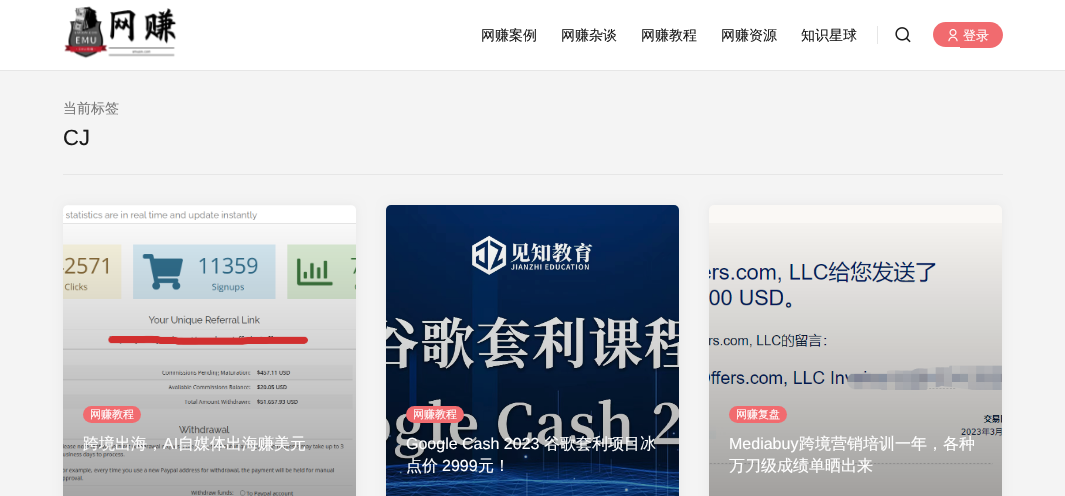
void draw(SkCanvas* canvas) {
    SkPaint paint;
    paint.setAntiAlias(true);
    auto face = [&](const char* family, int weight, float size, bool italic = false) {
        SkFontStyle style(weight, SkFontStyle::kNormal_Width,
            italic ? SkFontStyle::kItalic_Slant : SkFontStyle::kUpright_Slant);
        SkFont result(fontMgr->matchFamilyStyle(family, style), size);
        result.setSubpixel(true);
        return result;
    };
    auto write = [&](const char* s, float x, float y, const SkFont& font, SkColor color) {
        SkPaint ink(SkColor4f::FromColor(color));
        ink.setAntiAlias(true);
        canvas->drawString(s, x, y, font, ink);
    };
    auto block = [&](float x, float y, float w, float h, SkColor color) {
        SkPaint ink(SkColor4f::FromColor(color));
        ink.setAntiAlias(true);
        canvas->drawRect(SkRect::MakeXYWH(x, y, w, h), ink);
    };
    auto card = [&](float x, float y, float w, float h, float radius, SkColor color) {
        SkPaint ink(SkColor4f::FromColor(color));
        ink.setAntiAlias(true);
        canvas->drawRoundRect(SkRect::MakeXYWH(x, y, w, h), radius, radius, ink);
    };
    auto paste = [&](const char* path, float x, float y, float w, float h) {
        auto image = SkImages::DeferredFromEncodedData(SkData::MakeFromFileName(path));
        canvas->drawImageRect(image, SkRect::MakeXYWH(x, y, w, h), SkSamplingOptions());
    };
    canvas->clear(SkColorSetRGB(244, 244, 244));
    block(0, 0, 1065, 70, SK_ColorWHITE);
    block(0, 70, 1065, 1, SkColorSetRGB(230, 230, 230));
    paste("pic1.png", 64, 6, 113, 53);
    auto kFont1 = face("WenQuanYi Zen Hei", 500, 14);
    write("网赚案例", 481, 40, kFont1, SkColorSetRGB(26, 26, 26));
    write("网赚杂谈", 561, 40, kFont1, SkColorSetRGB(26, 26, 26));
    write("网赚教程", 641, 40, kFont1, SkColorSetRGB(26, 26, 26));
    write("网赚资源", 721, 40, kFont1, SkColorSetRGB(26, 26, 26));
    write("知识星球", 801, 40, kFont1, SkColorSetRGB(26, 26, 26));
    block(877, 26, 1, 18, SkColorSetRGB(230, 230, 230));
    paste("pic2.png", 895, 27, 16, 16);
    paint.setColor(SkColorSetRGB(241, 107, 111));
    canvas->drawPath(SkPathBuilder().moveTo(945.5f, 22).lineTo(960, 22).lineTo(960, 47).lineTo(945.5f, 47).cubicTo(938.5f, 47, 933, 41.5f, 933, 34.5f).cubicTo(933, 27.5f, 938.5f, 22, 945.5f, 22).close().detach(), paint);
    paste("pic3.png", 948, 29, 10, 13);
    canvas->drawPath(SkPathBuilder().moveTo(960, 22).lineTo(990, 22).cubicTo(997, 22, 1003, 28, 1003, 35).cubicTo(1003, 42, 997, 48, 990, 48).lineTo(960, 48).close().detach(), paint);
    auto kFont2 = face("WenQuanYi Zen Hei", 500, 13);
    write("登录", 963, 40, kFont2, SK_ColorWHITE);
    block(63, 174, 940, 1, SkColorSetRGB(230, 230, 230));
    write("当前标签", 63, 113, kFont1, SkColorSetRGB(119, 119, 119));
    auto kFont3 = face("Liberation Sans", 400, 22);
    write("CJ", 63, 145, kFont3, SkColorSetRGB(26, 26, 26));
    paint.setColor(SkColorSetARGB(13, 0, 0, 0));
    paint.setMaskFilter(SkMaskFilter::MakeBlur(kNormal_SkBlurStyle, 5));
    canvas->drawRoundRect(SkRect::MakeXYWH(63, 205, 293, 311), 5, 5, paint);
    paint.setMaskFilter(nullptr);
    paste("pic4.png", 63, 205, 293, 291);
    {
        const SkColor colors[] = {SkColorSetARGB(102, 0, 0, 0), SkColorSetARGB(0, 0, 0, 0)};
        const float stops[] = {0, 1};
        const SkPoint ends[] = {{210, 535}, {210, 205}};
        paint.setShader(SkGradientShader::MakeLinear(ends, colors, stops, 2, SkTileMode::kClamp));
        paint.setAlpha(255);
    }
    canvas->drawRect(SkRect::MakeXYWH(63, 223, 293, 273), paint);
    card(83, 406, 58, 17, 8.5f, SkColorSetRGB(241, 107, 111));
    auto kFont4 = face("WenQuanYi Zen Hei", 500, 11);
    write("网赚教程", 90, 418, kFont4, SK_ColorWHITE);
    auto kFont5 = face("WenQuanYi Zen Hei", 500, 16);
    write("跨境出海，", 83, 449, kFont5, SK_ColorWHITE);
    auto kFont6 = face("Liberation Sans", 400, 16);
    write("AI", 163, 449, kFont6, SK_ColorWHITE);
    write("自媒体出海赚美元", 178, 449, kFont5, SK_ColorWHITE);
    paint.setShader(nullptr);
    paint.setColor(SkColorSetARGB(13, 0, 0, 0));
    paint.setMaskFilter(SkMaskFilter::MakeBlur(kNormal_SkBlurStyle, 5));
    canvas->drawRoundRect(SkRect::MakeXYWH(386, 205, 293, 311), 5, 5, paint);
    paint.setMaskFilter(nullptr);
    paste("pic5.png", 386, 205, 293, 291);
    {
        const SkColor colors[] = {SkColorSetARGB(102, 0, 0, 0), SkColorSetARGB(0, 0, 0, 0)};
        const float stops[] = {0, 1};
        const SkPoint ends[] = {{533, 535}, {533, 205}};
        paint.setShader(SkGradientShader::MakeLinear(ends, colors, stops, 2, SkTileMode::kClamp));
        paint.setAlpha(255);
    }
    canvas->drawRect(SkRect::MakeXYWH(386, 226, 293, 270), paint);
    card(406, 406, 58, 17, 8.5f, SkColorSetRGB(241, 107, 111));
    write("网赚教程", 413, 418, kFont4, SK_ColorWHITE);
    write("Google Cash 2023", 406, 449, kFont6, SK_ColorWHITE);
    write("谷歌套利项目冰", 544, 449, kFont5, SK_ColorWHITE);
    write("点价", 406, 471, kFont5, SK_ColorWHITE);
    write("2999", 442, 471, kFont6, SK_ColorWHITE);
    write("元！", 478, 471, kFont5, SK_ColorWHITE);
    paint.setShader(nullptr);
    paint.setColor(SkColorSetARGB(13, 0, 0, 0));
    paint.setMaskFilter(SkMaskFilter::MakeBlur(kNormal_SkBlurStyle, 5));
    canvas->drawRoundRect(SkRect::MakeXYWH(709, 205, 293, 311), 5, 5, paint);
    paint.setMaskFilter(nullptr);
    paste("pic6.png", 709, 205, 293, 291);
    {
        const SkColor colors[] = {SkColorSetARGB(102, 0, 0, 0), SkColorSetARGB(0, 0, 0, 0)};
        const float stops[] = {0, 1};
        const SkPoint ends[] = {{856, 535}, {856, 205}};
        paint.setShader(SkGradientShader::MakeLinear(ends, colors, stops, 2, SkTileMode::kClamp));
        paint.setAlpha(255);
    }
    canvas->drawRect(SkRect::MakeXYWH(709, 223, 293, 273), paint);
    card(729, 406, 58, 17, 8.5f, SkColorSetRGB(241, 107, 111));
    write("网赚复盘", 736, 418, kFont4, SK_ColorWHITE);
    write("Mediabuy", 729, 449, kFont6, SK_ColorWHITE);
    write("跨境营销培训一年，各种", 799, 449, kFont5, SK_ColorWHITE);
    write("万刀级成绩单晒出来", 729, 471, kFont5, SK_ColorWHITE);
}
